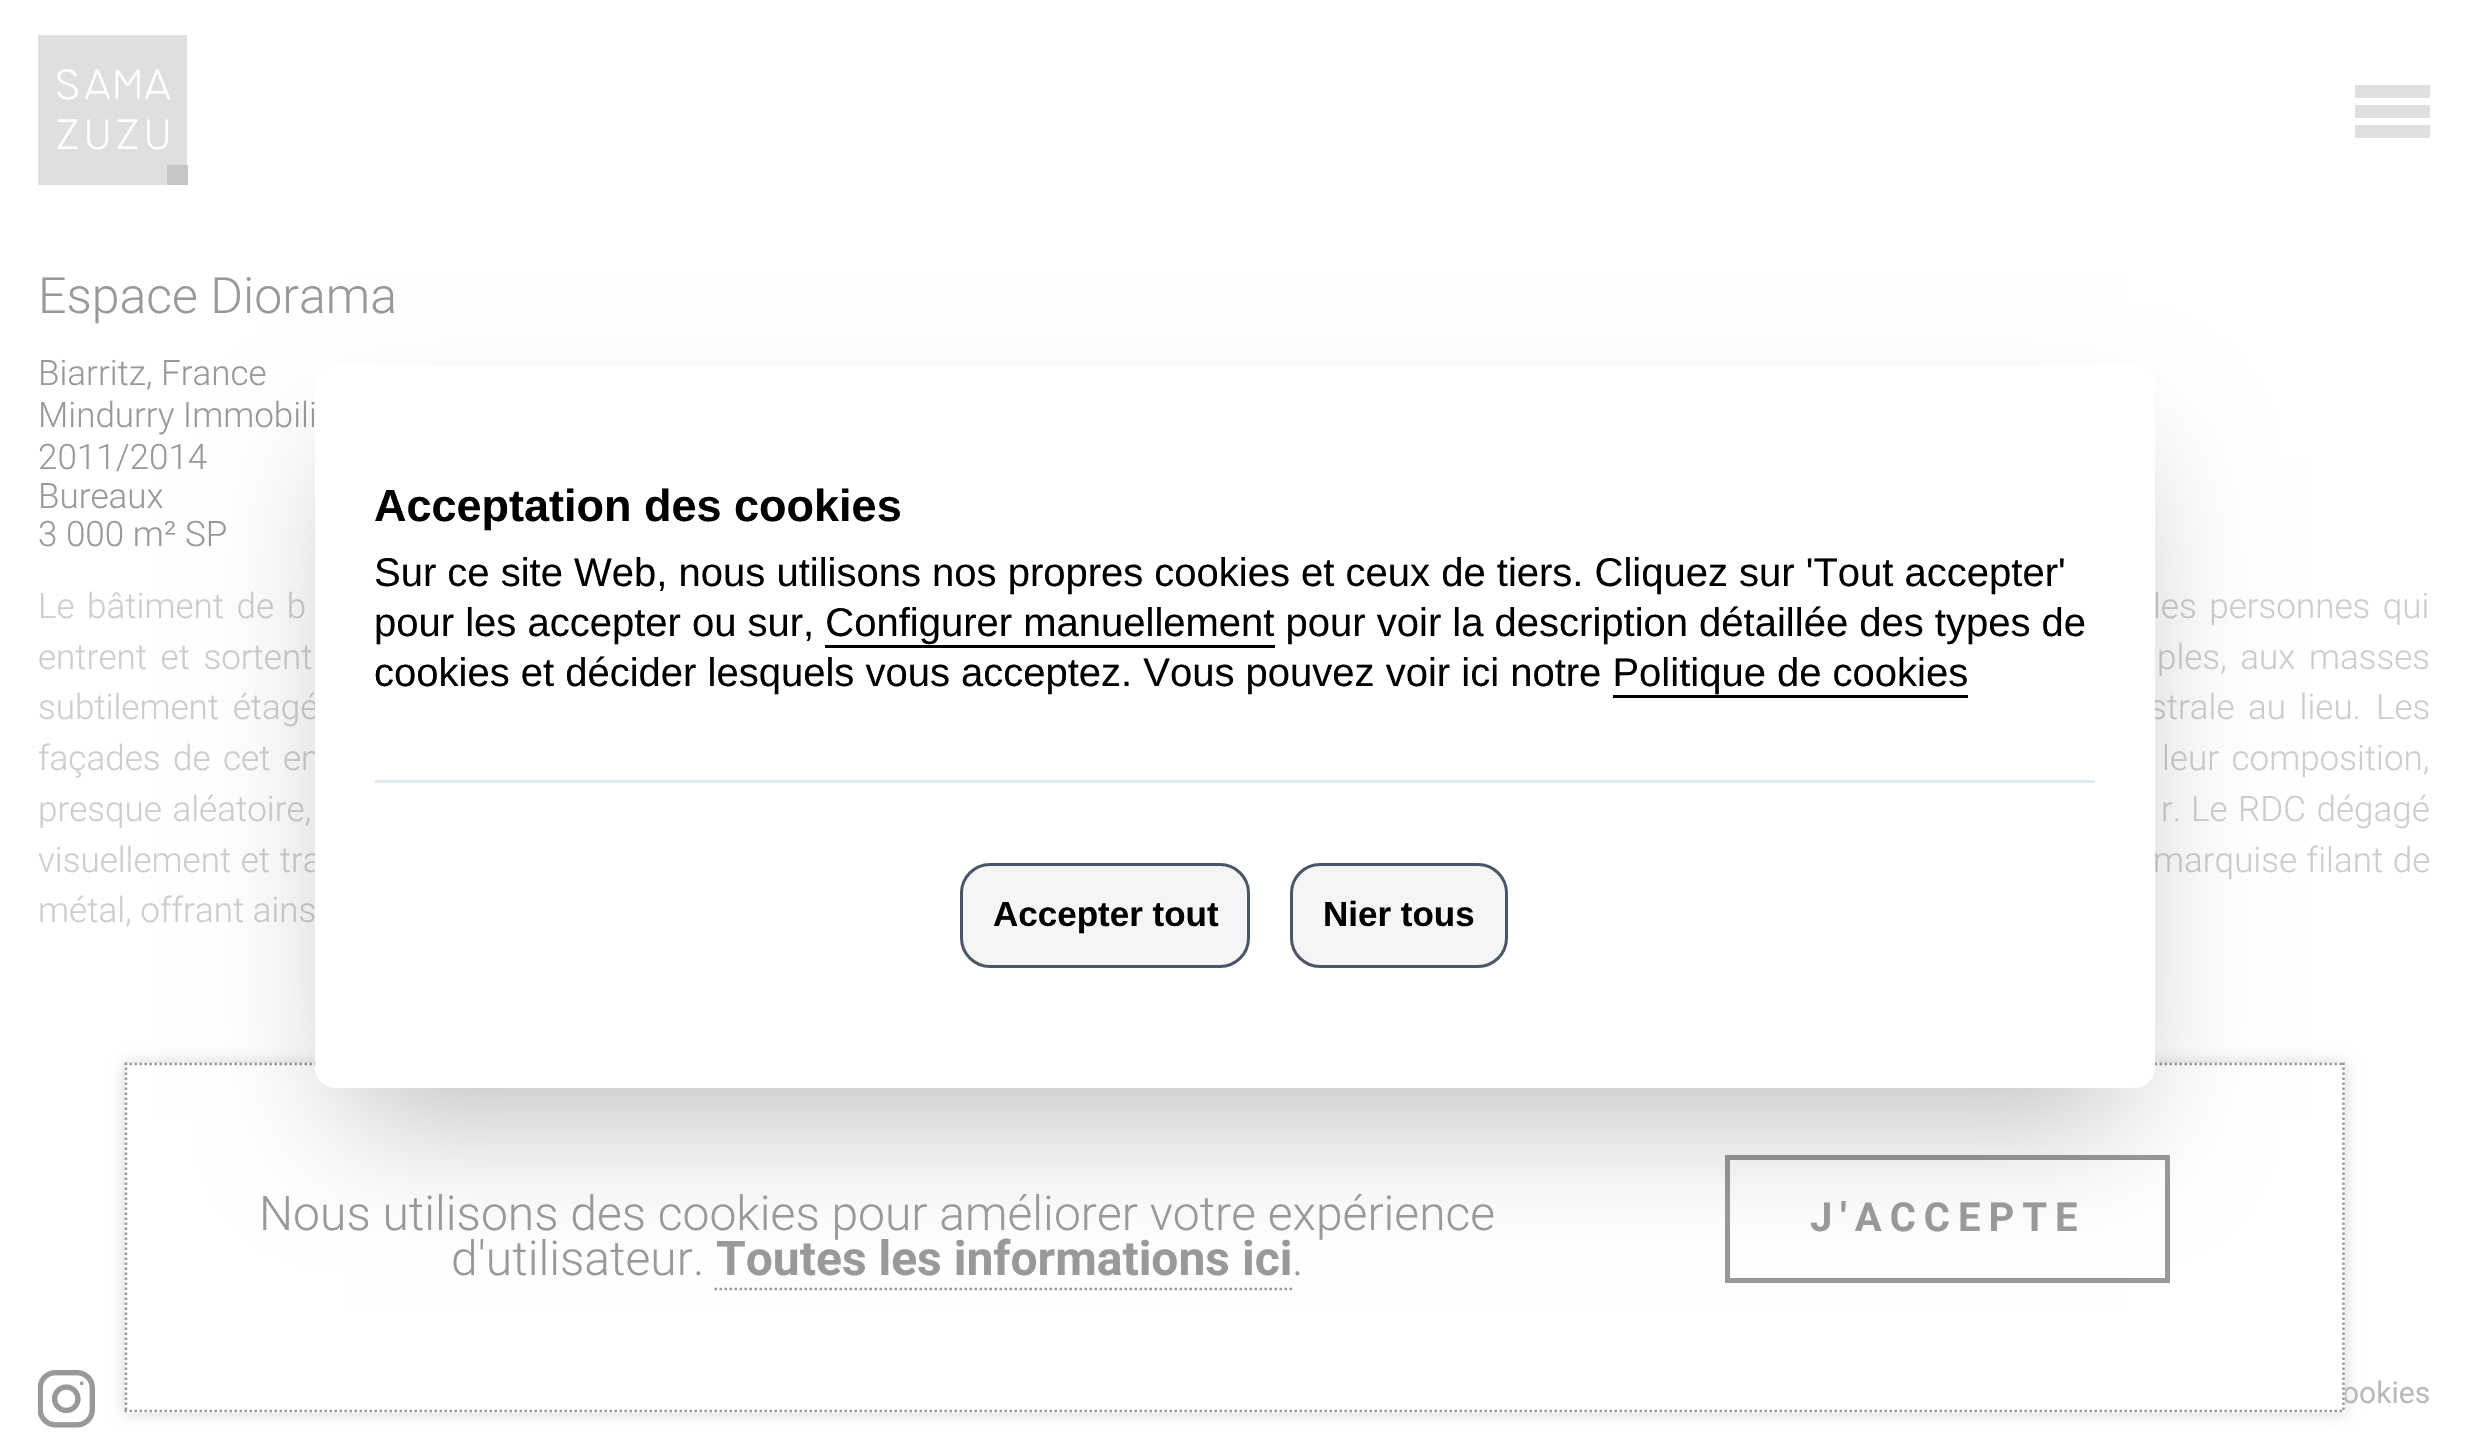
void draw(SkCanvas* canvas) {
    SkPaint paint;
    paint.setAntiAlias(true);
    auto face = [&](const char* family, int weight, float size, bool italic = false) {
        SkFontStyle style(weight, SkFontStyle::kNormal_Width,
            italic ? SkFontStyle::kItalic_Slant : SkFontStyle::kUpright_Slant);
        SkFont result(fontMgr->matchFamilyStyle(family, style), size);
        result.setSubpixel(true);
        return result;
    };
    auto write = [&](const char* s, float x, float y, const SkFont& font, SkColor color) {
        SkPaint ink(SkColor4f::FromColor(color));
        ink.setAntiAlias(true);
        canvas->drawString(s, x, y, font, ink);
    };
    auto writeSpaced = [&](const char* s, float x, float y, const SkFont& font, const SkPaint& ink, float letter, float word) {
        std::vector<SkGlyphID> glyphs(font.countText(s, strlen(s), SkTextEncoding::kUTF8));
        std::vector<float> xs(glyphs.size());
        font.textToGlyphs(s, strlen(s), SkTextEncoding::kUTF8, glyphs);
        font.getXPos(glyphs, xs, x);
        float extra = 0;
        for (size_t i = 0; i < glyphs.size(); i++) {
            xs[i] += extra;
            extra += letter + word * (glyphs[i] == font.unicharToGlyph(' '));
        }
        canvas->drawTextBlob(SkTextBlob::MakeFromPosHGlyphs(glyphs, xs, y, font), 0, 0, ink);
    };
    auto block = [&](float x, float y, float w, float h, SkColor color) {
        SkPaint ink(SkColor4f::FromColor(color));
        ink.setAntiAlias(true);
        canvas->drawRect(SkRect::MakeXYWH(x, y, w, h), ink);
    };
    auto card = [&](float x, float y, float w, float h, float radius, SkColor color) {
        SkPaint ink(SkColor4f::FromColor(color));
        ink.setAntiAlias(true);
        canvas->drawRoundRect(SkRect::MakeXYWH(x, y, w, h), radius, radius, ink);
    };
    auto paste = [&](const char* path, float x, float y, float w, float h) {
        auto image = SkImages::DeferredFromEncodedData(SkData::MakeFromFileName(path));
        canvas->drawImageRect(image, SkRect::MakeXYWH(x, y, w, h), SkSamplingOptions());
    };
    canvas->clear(SK_ColorWHITE);
    paste("pic1.png", 38, 35, 150, 150);
    block(2355, 105, 75, 13, SkColorSetRGB(223, 223, 223));
    block(2355, 85, 75, 13, SkColorSetRGB(223, 223, 223));
    block(2355, 125, 75, 13, SkColorSetRGB(223, 223, 223));
    auto kFont1 = face("Roboto", 300, 50);
    write("Espace Diorama", 38, 313, kFont1, SkColorSetRGB(153, 153, 153));
    auto kFont2 = face("Roboto", 300, 35);
    write("Biarritz, France", 38, 385, kFont2, SkColorSetRGB(153, 153, 153));
    write("Mindurry Immobili", 38, 427, kFont2, SkColorSetRGB(153, 153, 153));
    write("2011/2014", 38, 469, kFont2, SkColorSetRGB(153, 153, 153));
    write("Bureaux", 38, 508, kFont2, SkColorSetRGB(153, 153, 153));
    write("3 000 m² SP", 38, 546, kFont2, SkColorSetRGB(153, 153, 153));
    paint.setColor(SkColorSetRGB(205, 205, 205));
    writeSpaced("Le bâtiment de b", 38, 618, kFont2, paint, 0, 4);
    writeSpaced("les personnes qui", 2153, 618, kFont2, paint, 0, 4);
    writeSpaced("entrent et sortent", 38, 669, kFont2, paint, 0, 5);
    writeSpaced("ples, aux masses", 2157, 669, kFont2, paint, 0, 5);
    writeSpaced("subtilement étagé", 38, 719, kFont2, paint, 0, 5);
    writeSpaced("strale au lieu.", 2149, 719, kFont2, paint, 0, 5);
    write("Les", 2376, 719, kFont2, SkColorSetRGB(205, 205, 205));
    writeSpaced("façades de cet en", 38, 770, kFont2, paint, 0, 4);
    writeSpaced("leur composition,", 2162, 770, kFont2, paint, 0, 4);
    writeSpaced("presque aléatoire,", 38, 821, kFont2, paint, 0, 2);
    writeSpaced("r.", 2161, 821, kFont2, paint, 0, 2);
    writeSpaced("Le RDC dégagé", 2191, 821, kFont2, paint, 0, 2);
    writeSpaced("visuellement et tra", 38, 872, kFont2, paint, 0, 1);
    writeSpaced("marquise filant de", 2153, 872, kFont2, paint, 0, 1);
    write("métal, offrant ains", 38, 922, kFont2, SkColorSetRGB(205, 205, 205));
    paint.setColor(SkColorSetARGB(102, 153, 153, 153));
    paint.setMaskFilter(SkMaskFilter::MakeBlur(kNormal_SkBlurStyle, 7.5f));
    canvas->drawRect(SkRect::MakeXYWH(125, 1063, 2220, 350), paint);
    paint.setMaskFilter(nullptr);
    auto kFont3 = face("Roboto", 400, 30);
    write("ookies", 2342, 1403, kFont3, SkColorSetRGB(185, 185, 185));
    block(125, 1063, 2220, 350, SK_ColorWHITE);
    paint.setStyle(SkPaint::kStroke_Style);
    paint.setStrokeWidth(2.5f);
    paint.setColor(SkColorSetRGB(153, 153, 153));
    paint.setPathEffect(SkDashPathEffect::Make({{2.5f, 2.5f}}, 0));
    canvas->drawPath(SkPathBuilder().moveTo(124.5f, 1064).lineTo(2344.5f, 1064).detach(), paint);
    paint.setPathEffect(nullptr);
    paint.setPathEffect(SkDashPathEffect::Make({{2.5f, 2.5f}}, 0));
    canvas->drawPath(SkPathBuilder().moveTo(714.5f, 1289).lineTo(1292, 1289).detach(), paint);
    paint.setPathEffect(nullptr);
    paint.setStrokeWidth(5);
    canvas->drawRect(SkRect::MakeXYWH(1727.5f, 1157.5f, 440, 123), paint);
    paint.setStyle(SkPaint::kFill_Style);
    paint.setColor(SkColorSetARGB(64, 0, 0, 0));
    paint.setMaskFilter(SkMaskFilter::MakeBlur(kNormal_SkBlurStyle, 62.5f));
    canvas->drawRect(SkRect::MakeXYWH(345, 458, 1780, 662), paint);
    paint.setMaskFilter(nullptr);
    card(315, 365, 1840, 723, 20, SK_ColorWHITE);
    auto kFont4 = face("Liberation Sans", 700, 45);
    write("Acceptation des cookies", 374, 521, kFont4, SK_ColorBLACK);
    block(375, 780, 1720, 3, SkColorSetRGB(226, 232, 240));
    auto kFont5 = face("Liberation Sans", 400, 40);
    write("Sur ce site Web, nous utilisons nos propres cookies et ceux de tiers. Cliquez sur 'Tout accepter'", 374, 586, kFont5, SK_ColorBLACK);
    write("pour les accepter ou sur, Configurer manuellement pour voir la description détaillée des types de", 374, 636, kFont5, SK_ColorBLACK);
    block(825, 645, 450, 3, SK_ColorBLACK);
    write("cookies et décider lesquels vous acceptez. Vous pouvez voir ici notre Politique de cookies", 374, 686, kFont5, SK_ColorBLACK);
    block(1613, 695, 355, 3, SK_ColorBLACK);
    paint.setColor(SkColorSetRGB(245, 245, 245));
    canvas->drawRoundRect(SkRect::MakeXYWH(961.5f, 864.5f, 287, 102), 28.5f, 28.5f, paint);
    paint.setStyle(SkPaint::kStroke_Style);
    paint.setStrokeWidth(3);
    paint.setColor(SkColorSetRGB(74, 85, 104));
    canvas->drawRoundRect(SkRect::MakeXYWH(961.5f, 864.5f, 287, 102), 28.5f, 28.5f, paint);
    auto kFont6 = face("Liberation Sans", 700, 35);
    write("Accepter tout", 993, 926, kFont6, SK_ColorBLACK);
    paint.setStyle(SkPaint::kFill_Style);
    paint.setColor(SkColorSetRGB(245, 245, 245));
    canvas->drawRoundRect(SkRect::MakeXYWH(1291.5f, 864.5f, 215, 102), 28.5f, 28.5f, paint);
    paint.setStyle(SkPaint::kStroke_Style);
    paint.setColor(SkColorSetRGB(74, 85, 104));
    canvas->drawRoundRect(SkRect::MakeXYWH(1291.5f, 864.5f, 215, 102), 28.5f, 28.5f, paint);
    write("Nier tous", 1323, 926, kFont6, SK_ColorBLACK);
    paint.setStrokeWidth(2.5f);
    paint.setColor(SkColorSetRGB(153, 153, 153));
    paint.setPathEffect(SkDashPathEffect::Make({{2.5f, 2.5f}}, 0));
    canvas->drawPath(SkPathBuilder().moveTo(2343.5f, 1062.5f).lineTo(2343.5f, 1412.5f).detach(), paint);
    paint.setPathEffect(nullptr);
    paint.setPathEffect(SkDashPathEffect::Make({{2.5f, 2.5f}}, 0));
    canvas->drawPath(SkPathBuilder().moveTo(124.5f, 1411).lineTo(2344.5f, 1411).detach(), paint);
    paint.setPathEffect(nullptr);
    paint.setPathEffect(SkDashPathEffect::Make({{2.5f, 2.5f}}, 0));
    canvas->drawPath(SkPathBuilder().moveTo(126, 1062.5f).lineTo(126, 1412.5f).detach(), paint);
    paint.setPathEffect(nullptr);
    auto kFont7 = face("Roboto", 300, 48);
    write("Nous utilisons des cookies pour améliorer votre expérience", 259, 1230, kFont7, SkColorSetRGB(153, 153, 153));
    write("d'utilisateur.", 451, 1275, kFont7, SkColorSetRGB(153, 153, 153));
    auto kFont8 = face("Roboto", 700, 48);
    write("Toutes les informations ici", 716, 1275, kFont8, SkColorSetRGB(153, 153, 153));
    write(".", 1292, 1275, kFont7, SkColorSetRGB(153, 153, 153));
    auto kFont9 = face("Roboto", 700, 40);
    paint.setStyle(SkPaint::kFill_Style);
    writeSpaced("J'ACCEPTE", 1810, 1231, kFont9, paint, 8, 0);
    paste("pic2.png", 38, 1370, 57, 58);
}
